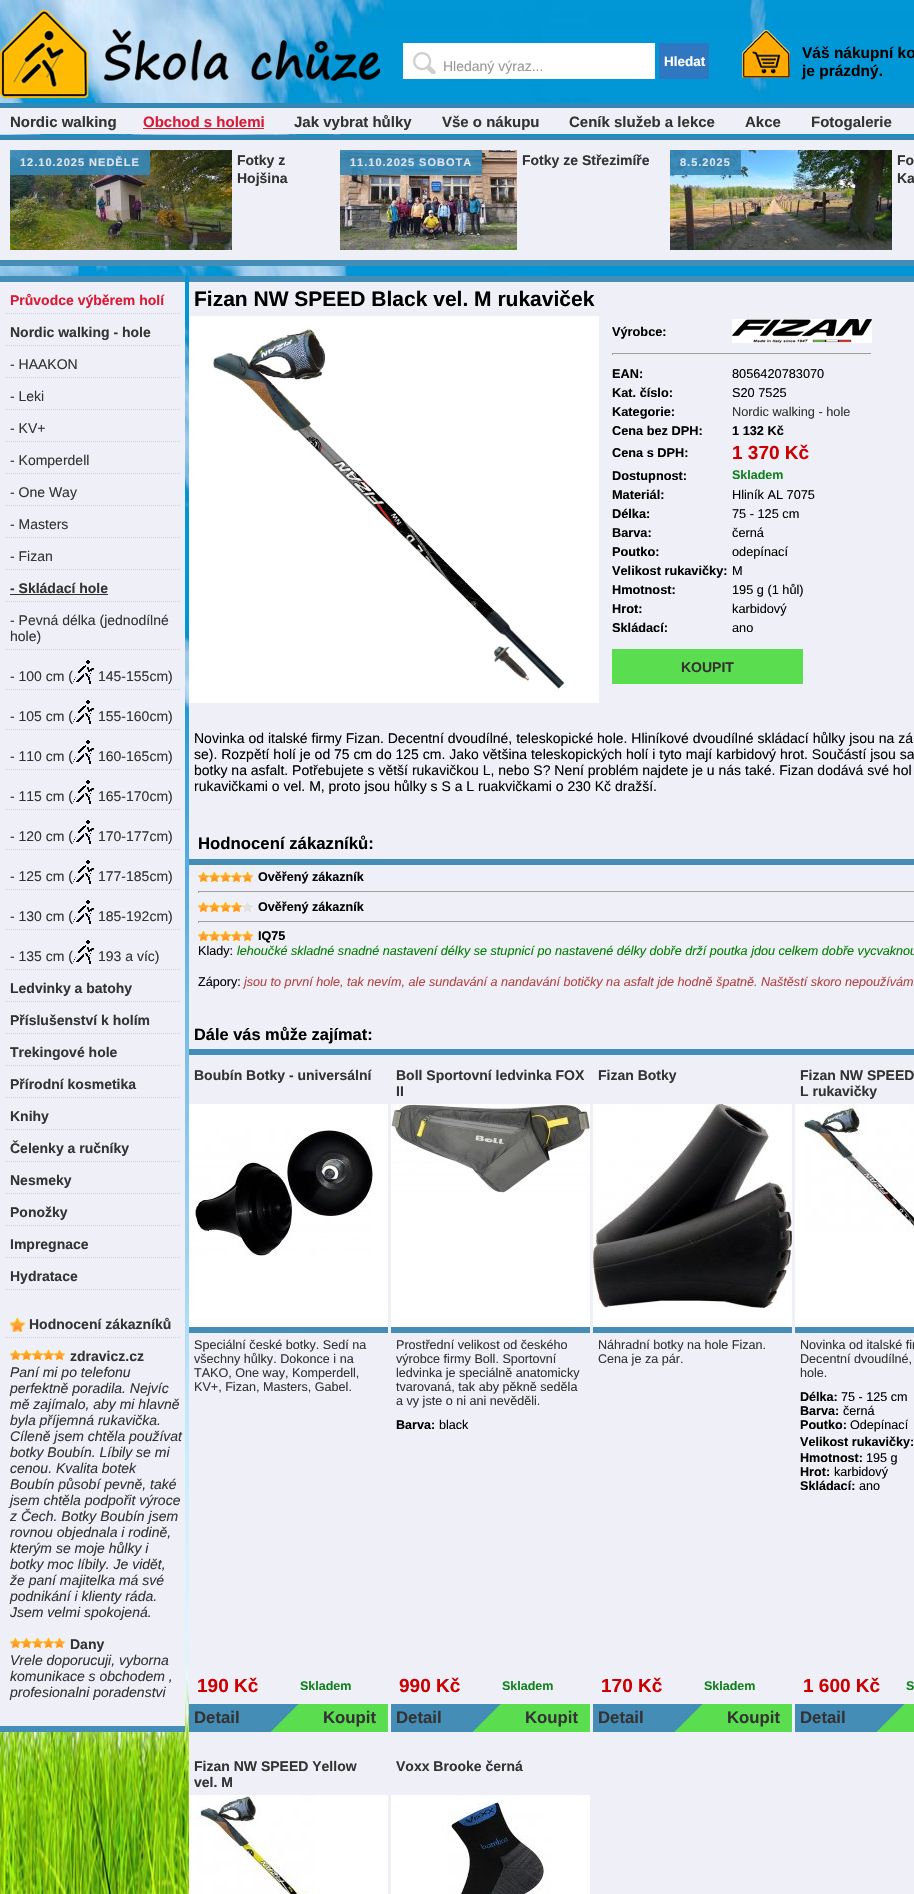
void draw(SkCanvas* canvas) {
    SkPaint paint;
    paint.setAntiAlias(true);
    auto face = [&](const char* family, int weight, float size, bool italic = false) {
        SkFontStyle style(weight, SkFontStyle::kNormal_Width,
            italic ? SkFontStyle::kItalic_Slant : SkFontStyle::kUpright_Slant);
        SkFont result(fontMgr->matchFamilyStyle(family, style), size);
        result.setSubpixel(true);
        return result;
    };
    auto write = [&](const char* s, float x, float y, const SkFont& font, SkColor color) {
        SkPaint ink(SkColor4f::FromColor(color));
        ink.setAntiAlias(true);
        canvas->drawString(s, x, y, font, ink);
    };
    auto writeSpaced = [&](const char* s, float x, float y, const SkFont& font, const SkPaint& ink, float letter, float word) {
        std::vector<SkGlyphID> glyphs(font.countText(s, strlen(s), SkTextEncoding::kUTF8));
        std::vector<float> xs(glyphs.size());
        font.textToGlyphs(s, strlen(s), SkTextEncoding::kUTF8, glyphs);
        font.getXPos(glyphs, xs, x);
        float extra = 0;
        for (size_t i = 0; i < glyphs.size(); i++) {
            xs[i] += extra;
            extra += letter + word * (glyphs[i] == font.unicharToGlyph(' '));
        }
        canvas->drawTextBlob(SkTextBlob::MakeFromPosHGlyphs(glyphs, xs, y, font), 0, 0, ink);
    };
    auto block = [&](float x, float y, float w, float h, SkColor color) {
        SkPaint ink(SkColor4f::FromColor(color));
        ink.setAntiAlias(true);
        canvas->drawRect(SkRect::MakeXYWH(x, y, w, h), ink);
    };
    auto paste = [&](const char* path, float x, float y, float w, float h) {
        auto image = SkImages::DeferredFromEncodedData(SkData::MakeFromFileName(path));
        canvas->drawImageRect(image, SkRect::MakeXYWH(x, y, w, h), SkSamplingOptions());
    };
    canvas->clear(SK_ColorWHITE);
    paste("pic1.png", 0, 0, 914, 1894);
    paste("pic2.png", 0, 10, 380, 88);
    block(408, 48, 242, 26, SK_ColorWHITE);
    paste("pic3.png", 413, 52, 23, 22);
    paint.setStyle(SkPaint::kStroke_Style);
    paint.setStrokeWidth(5);
    paint.setColor(SK_ColorWHITE);
    canvas->drawRect(SkRect::MakeXYWH(405.5f, 45.5f, 247, 31), paint);
    auto kFont1 = face("Liberation Sans", 400, 14);
    write("Hledaný výraz...", 443, 71, kFont1, SkColorSetRGB(154, 152, 152));
    block(659, 43, 50, 36, SkColorSetRGB(47, 119, 193));
    auto kFont2 = face("Liberation Sans", 700, 13.5f);
    write("Hledat", 664, 66, kFont2, SK_ColorWHITE);
    paste("pic4.png", 742, 30, 48, 48);
    auto kFont3 = face("Liberation Sans", 700, 15.5f);
    write("Váš nákupní ko", 802, 58, kFont3, SK_ColorBLACK);
    write("je prázdný.", 802, 76, kFont3, SK_ColorBLACK);
    block(0, 103, 914, 5, SkColorSetRGB(52, 134, 181));
    block(0, 108, 914, 26, SkColorSetRGB(239, 239, 247));
    auto kFont4 = face("Liberation Sans", 700, 15);
    write("Nordic walking", 10, 127, kFont4, SkColorSetRGB(51, 51, 51));
    write("Obchod s holemi", 143, 127, kFont4, SkColorSetRGB(218, 26, 53));
    block(143, 128, 121, 1, SkColorSetRGB(218, 26, 53));
    write("Jak vybrat hůlky", 294, 127, kFont4, SkColorSetRGB(51, 51, 51));
    write("Vše o nákupu", 442, 127, kFont4, SkColorSetRGB(51, 51, 51));
    write("Ceník služeb a lekce", 569, 127, kFont4, SkColorSetRGB(51, 51, 51));
    write("Akce", 745, 127, kFont4, SkColorSetRGB(51, 51, 51));
    write("Fotogalerie", 811, 127, kFont4, SkColorSetRGB(51, 51, 51));
    block(0, 135, 914, 5, SkColorSetRGB(52, 134, 181));
    block(0, 260, 914, 6, SkColorSetRGB(67, 141, 182));
    block(0, 140, 914, 120, SkColorSetRGB(239, 239, 247));
    paste("pic5.png", 10, 150, 222, 100);
    auto kFont5 = face("Liberation Sans", 700, 14);
    write("Fotky z", 237, 165, kFont5, SkColorSetRGB(51, 51, 51));
    write("Hojšina", 237, 183, kFont5, SkColorSetRGB(51, 51, 51));
    block(10, 150, 140, 25, SkColorSetARGB(230, 52, 134, 181));
    auto kFont6 = face("Liberation Sans", 700, 11);
    paint.setStyle(SkPaint::kFill_Style);
    paint.setColor(SkColorSetRGB(221, 228, 240));
    writeSpaced("12.10.2025 NEDĚLE", 20, 166, kFont6, paint, 1, 0);
    paste("pic6.png", 340, 150, 177, 100);
    write("Fotky ze Střezimíře", 522, 165, kFont5, SkColorSetRGB(51, 51, 51));
    block(340, 150, 142, 25, SkColorSetARGB(230, 52, 134, 181));
    writeSpaced("11.10.2025 SOBOTA", 350, 166, kFont6, paint, 1, 0);
    paste("pic7.png", 670, 150, 222, 100);
    write("Fo", 897, 165, kFont5, SkColorSetRGB(51, 51, 51));
    write("Ka", 897, 183, kFont5, SkColorSetRGB(51, 51, 51));
    block(670, 150, 71, 25, SkColorSetARGB(230, 52, 134, 181));
    writeSpaced("8.5.2025", 680, 166, kFont6, paint, 1, 0);
    block(0, 282, 185, 1444, SkColorSetRGB(239, 239, 247));
    block(0, 276, 185, 6, SkColorSetRGB(67, 141, 182));
    block(0, 1726, 185, 6, SkColorSetRGB(67, 141, 182));
    paint.setStyle(SkPaint::kStroke_Style);
    paint.setStrokeWidth(1);
    paint.setColor(SkColorSetRGB(207, 210, 214));
    paint.setPathEffect(SkDashPathEffect::Make({{1, 1}}, 0));
    canvas->drawPath(SkPathBuilder().moveTo(5, 313.5f).lineTo(180, 313.5f).detach(), paint);
    paint.setPathEffect(nullptr);
    write("Průvodce výběrem holí", 10, 305, kFont5, SkColorSetRGB(218, 26, 53));
    paint.setPathEffect(SkDashPathEffect::Make({{1, 1}}, 0));
    canvas->drawPath(SkPathBuilder().moveTo(5, 345.5f).lineTo(180, 345.5f).detach(), paint);
    paint.setPathEffect(nullptr);
    write("Nordic walking - hole", 10, 337, kFont5, SkColorSetRGB(51, 51, 51));
    paint.setPathEffect(SkDashPathEffect::Make({{1, 1}}, 0));
    canvas->drawPath(SkPathBuilder().moveTo(5, 377.5f).lineTo(180, 377.5f).detach(), paint);
    paint.setPathEffect(nullptr);
    write("- HAAKON", 10, 369, kFont1, SkColorSetRGB(51, 51, 51));
    paint.setPathEffect(SkDashPathEffect::Make({{1, 1}}, 0));
    canvas->drawPath(SkPathBuilder().moveTo(5, 409.5f).lineTo(180, 409.5f).detach(), paint);
    paint.setPathEffect(nullptr);
    write("- Leki", 10, 401, kFont1, SkColorSetRGB(51, 51, 51));
    paint.setPathEffect(SkDashPathEffect::Make({{1, 1}}, 0));
    canvas->drawPath(SkPathBuilder().moveTo(5, 441.5f).lineTo(180, 441.5f).detach(), paint);
    paint.setPathEffect(nullptr);
    write("- KV+", 10, 433, kFont1, SkColorSetRGB(51, 51, 51));
    paint.setPathEffect(SkDashPathEffect::Make({{1, 1}}, 0));
    canvas->drawPath(SkPathBuilder().moveTo(5, 473.5f).lineTo(180, 473.5f).detach(), paint);
    paint.setPathEffect(nullptr);
    write("- Komperdell", 10, 465, kFont1, SkColorSetRGB(51, 51, 51));
    paint.setPathEffect(SkDashPathEffect::Make({{1, 1}}, 0));
    canvas->drawPath(SkPathBuilder().moveTo(5, 505.5f).lineTo(180, 505.5f).detach(), paint);
    paint.setPathEffect(nullptr);
    write("- One Way", 10, 497, kFont1, SkColorSetRGB(51, 51, 51));
    paint.setPathEffect(SkDashPathEffect::Make({{1, 1}}, 0));
    canvas->drawPath(SkPathBuilder().moveTo(5, 537.5f).lineTo(180, 537.5f).detach(), paint);
    paint.setPathEffect(nullptr);
    write("- Masters", 10, 529, kFont1, SkColorSetRGB(51, 51, 51));
    paint.setPathEffect(SkDashPathEffect::Make({{1, 1}}, 0));
    canvas->drawPath(SkPathBuilder().moveTo(5, 569.5f).lineTo(180, 569.5f).detach(), paint);
    paint.setPathEffect(nullptr);
    write("- Fizan", 10, 561, kFont1, SkColorSetRGB(51, 51, 51));
    paint.setPathEffect(SkDashPathEffect::Make({{1, 1}}, 0));
    canvas->drawPath(SkPathBuilder().moveTo(5, 601.5f).lineTo(180, 601.5f).detach(), paint);
    paint.setPathEffect(nullptr);
    write("- Skládací hole", 10, 593, kFont5, SkColorSetRGB(51, 51, 51));
    block(10, 594, 98, 1, SkColorSetRGB(51, 51, 51));
    paint.setPathEffect(SkDashPathEffect::Make({{1, 1}}, 0));
    canvas->drawPath(SkPathBuilder().moveTo(5, 649.5f).lineTo(180, 649.5f).detach(), paint);
    paint.setPathEffect(nullptr);
    write("- Pevná délka (jednodílné", 10, 625, kFont1, SkColorSetRGB(51, 51, 51));
    write("hole)", 10, 641, kFont1, SkColorSetRGB(51, 51, 51));
    paint.setPathEffect(SkDashPathEffect::Make({{1, 1}}, 0));
    canvas->drawPath(SkPathBuilder().moveTo(5, 689.5f).lineTo(180, 689.5f).detach(), paint);
    paint.setPathEffect(nullptr);
    write("- 100 cm (", 10, 681, kFont1, SkColorSetRGB(51, 51, 51));
    paste("pic8.png", 73, 660, 21, 24);
    write("145-155cm)", 98, 681, kFont1, SkColorSetRGB(51, 51, 51));
    paint.setPathEffect(SkDashPathEffect::Make({{1, 1}}, 0));
    canvas->drawPath(SkPathBuilder().moveTo(5, 729.5f).lineTo(180, 729.5f).detach(), paint);
    paint.setPathEffect(nullptr);
    write("- 105 cm (", 10, 721, kFont1, SkColorSetRGB(51, 51, 51));
    paste("pic8.png", 73, 700, 21, 24);
    write("155-160cm)", 98, 721, kFont1, SkColorSetRGB(51, 51, 51));
    paint.setPathEffect(SkDashPathEffect::Make({{1, 1}}, 0));
    canvas->drawPath(SkPathBuilder().moveTo(5, 769.5f).lineTo(180, 769.5f).detach(), paint);
    paint.setPathEffect(nullptr);
    write("- 110 cm (", 10, 761, kFont1, SkColorSetRGB(51, 51, 51));
    paste("pic8.png", 73, 740, 21, 24);
    write("160-165cm)", 98, 761, kFont1, SkColorSetRGB(51, 51, 51));
    paint.setPathEffect(SkDashPathEffect::Make({{1, 1}}, 0));
    canvas->drawPath(SkPathBuilder().moveTo(5, 809.5f).lineTo(180, 809.5f).detach(), paint);
    paint.setPathEffect(nullptr);
    write("- 115 cm (", 10, 801, kFont1, SkColorSetRGB(51, 51, 51));
    paste("pic8.png", 73, 780, 21, 24);
    write("165-170cm)", 98, 801, kFont1, SkColorSetRGB(51, 51, 51));
    paint.setPathEffect(SkDashPathEffect::Make({{1, 1}}, 0));
    canvas->drawPath(SkPathBuilder().moveTo(5, 849.5f).lineTo(180, 849.5f).detach(), paint);
    paint.setPathEffect(nullptr);
    write("- 120 cm (", 10, 841, kFont1, SkColorSetRGB(51, 51, 51));
    paste("pic8.png", 73, 820, 21, 24);
    write("170-177cm)", 98, 841, kFont1, SkColorSetRGB(51, 51, 51));
    paint.setPathEffect(SkDashPathEffect::Make({{1, 1}}, 0));
    canvas->drawPath(SkPathBuilder().moveTo(5, 889.5f).lineTo(180, 889.5f).detach(), paint);
    paint.setPathEffect(nullptr);
    write("- 125 cm (", 10, 881, kFont1, SkColorSetRGB(51, 51, 51));
    paste("pic8.png", 73, 860, 21, 24);
    write("177-185cm)", 98, 881, kFont1, SkColorSetRGB(51, 51, 51));
    paint.setPathEffect(SkDashPathEffect::Make({{1, 1}}, 0));
    canvas->drawPath(SkPathBuilder().moveTo(5, 929.5f).lineTo(180, 929.5f).detach(), paint);
    paint.setPathEffect(nullptr);
    write("- 130 cm (", 10, 921, kFont1, SkColorSetRGB(51, 51, 51));
    paste("pic8.png", 73, 900, 21, 24);
    write("185-192cm)", 98, 921, kFont1, SkColorSetRGB(51, 51, 51));
    paint.setPathEffect(SkDashPathEffect::Make({{1, 1}}, 0));
    canvas->drawPath(SkPathBuilder().moveTo(5, 969.5f).lineTo(180, 969.5f).detach(), paint);
    paint.setPathEffect(nullptr);
    write("- 135 cm (", 10, 961, kFont1, SkColorSetRGB(51, 51, 51));
    paste("pic8.png", 73, 940, 21, 24);
    write("193 a víc)", 98, 961, kFont1, SkColorSetRGB(51, 51, 51));
    paint.setPathEffect(SkDashPathEffect::Make({{1, 1}}, 0));
    canvas->drawPath(SkPathBuilder().moveTo(5, 1001.5f).lineTo(180, 1001.5f).detach(), paint);
    paint.setPathEffect(nullptr);
    write("Ledvinky a batohy", 10, 993, kFont5, SkColorSetRGB(51, 51, 51));
    paint.setPathEffect(SkDashPathEffect::Make({{1, 1}}, 0));
    canvas->drawPath(SkPathBuilder().moveTo(5, 1033.5f).lineTo(180, 1033.5f).detach(), paint);
    paint.setPathEffect(nullptr);
    write("Příslušenství k holím", 10, 1025, kFont5, SkColorSetRGB(51, 51, 51));
    paint.setPathEffect(SkDashPathEffect::Make({{1, 1}}, 0));
    canvas->drawPath(SkPathBuilder().moveTo(5, 1065.5f).lineTo(180, 1065.5f).detach(), paint);
    paint.setPathEffect(nullptr);
    write("Trekingové hole", 10, 1057, kFont5, SkColorSetRGB(51, 51, 51));
    paint.setPathEffect(SkDashPathEffect::Make({{1, 1}}, 0));
    canvas->drawPath(SkPathBuilder().moveTo(5, 1097.5f).lineTo(180, 1097.5f).detach(), paint);
    paint.setPathEffect(nullptr);
    write("Přírodní kosmetika", 10, 1089, kFont5, SkColorSetRGB(51, 51, 51));
    paint.setPathEffect(SkDashPathEffect::Make({{1, 1}}, 0));
    canvas->drawPath(SkPathBuilder().moveTo(5, 1129.5f).lineTo(180, 1129.5f).detach(), paint);
    paint.setPathEffect(nullptr);
    write("Knihy", 10, 1121, kFont5, SkColorSetRGB(51, 51, 51));
    paint.setPathEffect(SkDashPathEffect::Make({{1, 1}}, 0));
    canvas->drawPath(SkPathBuilder().moveTo(5, 1161.5f).lineTo(180, 1161.5f).detach(), paint);
    paint.setPathEffect(nullptr);
    write("Čelenky a ručníky", 10, 1153, kFont5, SkColorSetRGB(51, 51, 51));
    paint.setPathEffect(SkDashPathEffect::Make({{1, 1}}, 0));
    canvas->drawPath(SkPathBuilder().moveTo(5, 1193.5f).lineTo(180, 1193.5f).detach(), paint);
    paint.setPathEffect(nullptr);
    write("Nesmeky", 10, 1185, kFont5, SkColorSetRGB(51, 51, 51));
    paint.setPathEffect(SkDashPathEffect::Make({{1, 1}}, 0));
    canvas->drawPath(SkPathBuilder().moveTo(5, 1225.5f).lineTo(180, 1225.5f).detach(), paint);
    paint.setPathEffect(nullptr);
    write("Ponožky", 10, 1217, kFont5, SkColorSetRGB(51, 51, 51));
    paint.setPathEffect(SkDashPathEffect::Make({{1, 1}}, 0));
    canvas->drawPath(SkPathBuilder().moveTo(5, 1257.5f).lineTo(180, 1257.5f).detach(), paint);
    paint.setPathEffect(nullptr);
    write("Impregnace", 10, 1249, kFont5, SkColorSetRGB(51, 51, 51));
    paint.setPathEffect(SkDashPathEffect::Make({{1, 1}}, 0));
    canvas->drawPath(SkPathBuilder().moveTo(5, 1289.5f).lineTo(180, 1289.5f).detach(), paint);
    paint.setPathEffect(nullptr);
    write("Hydratace", 10, 1281, kFont5, SkColorSetRGB(51, 51, 51));
    paint.setPathEffect(SkDashPathEffect::Make({{1, 1}}, 0));
    canvas->drawPath(SkPathBuilder().moveTo(5, 1337.5f).lineTo(180, 1337.5f).detach(), paint);
    paint.setPathEffect(nullptr);
    paste("pic9.png", 10, 1318, 15, 14);
    write("Hodnocení zákazníků", 29, 1329, kFont5, SkColorSetRGB(51, 51, 51));
    paste("pic10.png", 10, 1350, 55, 10);
    write("zdravicz.cz", 70, 1361, kFont5, SkColorSetRGB(51, 51, 51));
    auto kFont7 = face("Liberation Sans", 400, 14, true);
    write("Paní mi po telefonu", 10, 1377, kFont7, SkColorSetRGB(51, 51, 51));
    write("perfektně poradila. Nejvíc", 10, 1393, kFont7, SkColorSetRGB(51, 51, 51));
    write("mě zajímalo, aby mi hlavně", 10, 1409, kFont7, SkColorSetRGB(51, 51, 51));
    write("byla příjemná rukavička.", 10, 1425, kFont7, SkColorSetRGB(51, 51, 51));
    write("Cíleně jsem chtěla používat", 10, 1441, kFont7, SkColorSetRGB(51, 51, 51));
    write("botky Boubín. Líbily se mi", 10, 1457, kFont7, SkColorSetRGB(51, 51, 51));
    write("cenou. Kvalita botek", 10, 1473, kFont7, SkColorSetRGB(51, 51, 51));
    write("Boubín působí pevně, také", 10, 1489, kFont7, SkColorSetRGB(51, 51, 51));
    write("jsem chtěla podpořit výroce", 10, 1505, kFont7, SkColorSetRGB(51, 51, 51));
    write("z Čech. Botky Boubín jsem", 10, 1521, kFont7, SkColorSetRGB(51, 51, 51));
    write("rovnou objednala i rodině,", 10, 1537, kFont7, SkColorSetRGB(51, 51, 51));
    write("kterým se moje hůlky i", 10, 1553, kFont7, SkColorSetRGB(51, 51, 51));
    write("botky moc líbily. Je vidět,", 10, 1569, kFont7, SkColorSetRGB(51, 51, 51));
    write("že paní majitelka má své", 10, 1585, kFont7, SkColorSetRGB(51, 51, 51));
    write("podnikání i klienty ráda.", 10, 1601, kFont7, SkColorSetRGB(51, 51, 51));
    write("Jsem velmi spokojená.", 10, 1617, kFont7, SkColorSetRGB(51, 51, 51));
    paste("pic10.png", 10, 1638, 55, 10);
    write("Dany", 70, 1649, kFont5, SkColorSetRGB(51, 51, 51));
    write("Vrele doporucuji, vyborna", 10, 1665, kFont7, SkColorSetRGB(51, 51, 51));
    write("komunikace s obchodem ,", 10, 1681, kFont7, SkColorSetRGB(51, 51, 51));
    write("profesionalni poradenstvi", 10, 1697, kFont7, SkColorSetRGB(51, 51, 51));
    block(189, 282, 725, 1612, SkColorSetRGB(239, 239, 247));
    block(189, 276, 725, 6, SkColorSetRGB(67, 141, 182));
    auto kFont8 = face("Liberation Sans", 700, 21);
    write("Fizan NW SPEED Black vel. M rukaviček", 194, 306, kFont8, SK_ColorBLACK);
    block(189, 316, 410, 387, SK_ColorWHITE);
    paste("pic11.png", 210, 326, 355, 363);
    auto kFont9 = face("Liberation Sans", 700, 12.75f);
    write("Výrobce:", 612, 336, kFont9, SK_ColorBLACK);
    paste("pic12.png", 732, 319, 140, 24);
    block(612, 353, 260, 1, SkColorSetRGB(159, 159, 159));
    block(871, 353, 1, 2, SkColorSetRGB(238, 238, 238));
    block(612, 354, 260, 1, SkColorSetRGB(238, 238, 238));
    block(612, 353, 1, 2, SkColorSetRGB(159, 159, 159));
    write("EAN:", 612, 378, kFont9, SK_ColorBLACK);
    auto kFont10 = face("Liberation Sans", 400, 12.75f);
    write("8056420783070", 732, 378, kFont10, SK_ColorBLACK);
    write("Kat. číslo:", 612, 397, kFont9, SK_ColorBLACK);
    write("S20 7525", 732, 397, kFont10, SK_ColorBLACK);
    write("Kategorie:", 612, 416, kFont9, SK_ColorBLACK);
    write("Nordic walking - hole", 732, 416, kFont10, SkColorSetRGB(51, 51, 51));
    write("Cena bez DPH:", 612, 435, kFont9, SK_ColorBLACK);
    write("1 132 Kč", 732, 435, kFont9, SK_ColorBLACK);
    write("Cena s DPH:", 612, 457, kFont9, SK_ColorBLACK);
    auto kFont11 = face("Liberation Sans", 700, 19);
    write("1 370 Kč", 732, 459, kFont11, SkColorSetRGB(204, 0, 0));
    write("Dostupnost:", 612, 480, kFont9, SK_ColorBLACK);
    auto kFont12 = face("Liberation Sans", 700, 12.5f);
    write("Skladem", 732, 479, kFont12, SkColorSetRGB(15, 129, 28));
    write("Materiál:", 612, 499, kFont9, SK_ColorBLACK);
    write("Hliník AL 7075", 732, 499, kFont10, SK_ColorBLACK);
    write("Délka:", 612, 518, kFont9, SK_ColorBLACK);
    write("75 - 125 cm", 732, 518, kFont10, SK_ColorBLACK);
    write("Barva:", 612, 537, kFont9, SK_ColorBLACK);
    write("černá", 732, 537, kFont10, SK_ColorBLACK);
    write("Poutko:", 612, 556, kFont9, SK_ColorBLACK);
    write("odepínací", 732, 556, kFont10, SK_ColorBLACK);
    write("Velikost rukavičky:", 612, 575, kFont9, SK_ColorBLACK);
    write("M", 732, 575, kFont10, SK_ColorBLACK);
    write("Hmotnost:", 612, 594, kFont9, SK_ColorBLACK);
    write("195 g (1 hůl)", 732, 594, kFont10, SK_ColorBLACK);
    write("Hrot:", 612, 613, kFont9, SK_ColorBLACK);
    write("karbidový", 732, 613, kFont10, SK_ColorBLACK);
    write("Skládací:", 612, 632, kFont9, SK_ColorBLACK);
    write("ano", 732, 632, kFont10, SK_ColorBLACK);
    block(612, 649, 191, 35, SkColorSetRGB(90, 221, 79));
    write("KOUPIT", 681, 672, kFont5, SkColorSetRGB(51, 51, 51));
    write("Novinka od italské firmy Fizan. Decentní dvoudílné, teleskopické hole. Hliníkové dvoudílné skládací hůlky jsou na zá", 194, 743, kFont1, SK_ColorBLACK);
    write("se). Rozpětí holí je od 75 cm do 125 cm. Jako většina teleskopických holí i tyto mají karbidový hrot. Součástí jsou sa", 194, 759, kFont1, SK_ColorBLACK);
    write("botky na asfalt. Potřebujete s větší rukavičkou L, nebo S? Není problém najdete je u nás také. Fizan dodává své hol", 194, 775, kFont1, SK_ColorBLACK);
    write("rukavičkami o vel. M, proto jsou hůlky s S a L ruakvičkami o 230 Kč dražší.", 194, 791, kFont1, SK_ColorBLACK);
    block(189, 859, 725, 6, SkColorSetRGB(67, 141, 182));
    auto kFont13 = face("Liberation Sans", 700, 16.75f);
    write("Hodnocení zákazníků:", 198, 849, kFont13, SK_ColorBLACK);
    paste("pic10.png", 198, 872, 55, 10);
    auto kFont14 = face("Liberation Sans", 700, 12.6f);
    write("Ověřený zákazník", 258, 881, kFont14, SK_ColorBLACK);
    block(198, 891, 716, 1, SkColorSetRGB(159, 159, 159));
    block(198, 892, 716, 1, SkColorSetRGB(238, 238, 238));
    block(198, 891, 1, 2, SkColorSetRGB(159, 159, 159));
    paste("pic13.png", 198, 902, 55, 10);
    write("Ověřený zákazník", 258, 911, kFont14, SK_ColorBLACK);
    block(198, 921, 716, 1, SkColorSetRGB(159, 159, 159));
    block(198, 922, 716, 1, SkColorSetRGB(238, 238, 238));
    block(198, 921, 1, 2, SkColorSetRGB(159, 159, 159));
    paste("pic10.png", 198, 931, 55, 10);
    write("IQ75", 258, 940, kFont14, SK_ColorBLACK);
    auto kFont15 = face("Liberation Sans", 400, 12.6f);
    write("Klady:", 198, 955, kFont15, SK_ColorBLACK);
    auto kFont16 = face("Liberation Sans", 400, 12.6f, true);
    write("lehoučké skladné snadné nastavení délky se stupnicí po nastavené délky dobře drží poutka jdou celkem dobře vycvaknou", 237, 955, kFont16, SkColorSetRGB(0, 128, 0));
    write("Zápory:", 198, 986, kFont15, SK_ColorBLACK);
    write("jsou to první hole, tak nevím, ale sundavání a nandavání botičky na asfalt jde hodně špatně. Naštěstí skoro nepoužívám", 244, 986, kFont16, SkColorSetRGB(182, 68, 68));
    auto kFont17 = face("Liberation Sans", 700, 16.4f);
    write("Dále vás může zajímat:", 194, 1040, kFont17, SK_ColorBLACK);
    block(189, 1049, 725, 6, SkColorSetRGB(67, 141, 182));
    write("Boubín Botky - universální", 194, 1080, kFont5, SkColorSetRGB(51, 51, 51));
    block(189, 1104, 199, 223, SK_ColorWHITE);
    block(189, 1327, 199, 6, SkColorSetRGB(67, 141, 182));
    paste("pic14.png", 189, 1128, 184, 128);
    write("Speciální české botky. Sedí na", 194, 1349, kFont15, SkColorSetRGB(51, 51, 51));
    write("všechny hůlky. Dokonce i na", 194, 1363, kFont15, SkColorSetRGB(51, 51, 51));
    write("TAKO, One way, Komperdell,", 194, 1377, kFont15, SkColorSetRGB(51, 51, 51));
    write("KV+, Fizan, Masters, Gabel.", 194, 1391, kFont15, SkColorSetRGB(51, 51, 51));
    write("190 Kč", 197, 1692, kFont11, SkColorSetRGB(204, 0, 0));
    write("Skladem", 300, 1690, kFont12, SkColorSetRGB(15, 129, 28));
    paste("pic15.png", 189, 1704, 199, 28);
    write("Detail", 194, 1723, kFont13, SkColorSetRGB(51, 51, 51));
    write("Koupit", 323, 1723, kFont13, SkColorSetRGB(51, 51, 51));
    write("Boll Sportovní ledvinka FOX", 396, 1080, kFont5, SkColorSetRGB(51, 51, 51));
    write("II", 396, 1096, kFont5, SkColorSetRGB(51, 51, 51));
    block(391, 1193, 199, 134, SK_ColorWHITE);
    block(391, 1327, 199, 6, SkColorSetRGB(67, 141, 182));
    paste("pic16.png", 391, 1104, 199, 89);
    write("Prostřední velikost od českého", 396, 1349, kFont15, SkColorSetRGB(51, 51, 51));
    write("výrobce firmy Boll. Sportovní", 396, 1363, kFont15, SkColorSetRGB(51, 51, 51));
    write("ledvinka je speciálně anatomicky", 396, 1377, kFont15, SkColorSetRGB(51, 51, 51));
    write("tvarovaná, tak aby pěkně seděla", 396, 1391, kFont15, SkColorSetRGB(51, 51, 51));
    write("a vy jste o ni ani nevěděli.", 396, 1405, kFont15, SkColorSetRGB(51, 51, 51));
    write("Barva:", 396, 1429, kFont14, SK_ColorBLACK);
    write("black", 439, 1429, kFont15, SK_ColorBLACK);
    write("990 Kč", 399, 1692, kFont11, SkColorSetRGB(204, 0, 0));
    write("Skladem", 502, 1690, kFont12, SkColorSetRGB(15, 129, 28));
    paste("pic15.png", 391, 1704, 199, 28);
    write("Detail", 396, 1723, kFont13, SkColorSetRGB(51, 51, 51));
    write("Koupit", 525, 1723, kFont13, SkColorSetRGB(51, 51, 51));
    write("Fizan Botky", 598, 1080, kFont5, SkColorSetRGB(51, 51, 51));
    block(593, 1308, 199, 19, SK_ColorWHITE);
    block(593, 1327, 199, 6, SkColorSetRGB(67, 141, 182));
    paste("pic17.png", 593, 1104, 199, 204);
    write("Náhradní botky na hole Fizan.", 598, 1349, kFont15, SkColorSetRGB(51, 51, 51));
    write("Cena je za pár.", 598, 1363, kFont15, SkColorSetRGB(51, 51, 51));
    write("170 Kč", 601, 1692, kFont11, SkColorSetRGB(204, 0, 0));
    write("Skladem", 704, 1690, kFont12, SkColorSetRGB(15, 129, 28));
    paste("pic15.png", 593, 1704, 199, 28);
    write("Detail", 598, 1723, kFont13, SkColorSetRGB(51, 51, 51));
    write("Koupit", 727, 1723, kFont13, SkColorSetRGB(51, 51, 51));
    write("Fizan NW SPEED", 800, 1080, kFont5, SkColorSetRGB(51, 51, 51));
    write("L rukavičky", 800, 1096, kFont5, SkColorSetRGB(51, 51, 51));
    block(795, 1104, 119, 223, SK_ColorWHITE);
    block(795, 1327, 119, 6, SkColorSetRGB(67, 141, 182));
    paste("pic18.png", 803, 1104, 111, 128);
    write("Novinka od italské fir", 800, 1349, kFont15, SkColorSetRGB(51, 51, 51));
    write("Decentní dvoudílné,", 800, 1363, kFont15, SkColorSetRGB(51, 51, 51));
    write("hole.", 800, 1377, kFont15, SkColorSetRGB(51, 51, 51));
    write("Délka:", 800, 1401, kFont14, SK_ColorBLACK);
    write("75 - 125 cm", 841, 1401, kFont15, SK_ColorBLACK);
    write("Barva:", 800, 1415, kFont14, SK_ColorBLACK);
    write("černá", 843, 1415, kFont15, SK_ColorBLACK);
    write("Poutko:", 800, 1429, kFont14, SK_ColorBLACK);
    write("Odepínací", 850, 1429, kFont15, SK_ColorBLACK);
    write("Velikost rukavičky:", 800, 1446, kFont14, SK_ColorBLACK);
    write("Hmotnost:", 800, 1462, kFont14, SK_ColorBLACK);
    write("195 g", 866, 1462, kFont15, SK_ColorBLACK);
    write("Hrot:", 800, 1476, kFont14, SK_ColorBLACK);
    write("karbidový", 834, 1476, kFont15, SK_ColorBLACK);
    write("Skládací:", 800, 1490, kFont14, SK_ColorBLACK);
    write("ano", 859, 1490, kFont15, SK_ColorBLACK);
    write("1 600 Kč", 803, 1692, kFont11, SkColorSetRGB(204, 0, 0));
    write("S", 906, 1690, kFont12, SkColorSetRGB(15, 129, 28));
    paste("pic19.png", 795, 1704, 119, 28);
    write("Detail", 800, 1723, kFont13, SkColorSetRGB(51, 51, 51));
    write("Fizan NW SPEED Yellow", 194, 1771, kFont5, SkColorSetRGB(51, 51, 51));
    write("vel. M", 194, 1787, kFont5, SkColorSetRGB(51, 51, 51));
    block(315, 1795, 73, 99, SK_ColorWHITE);
    paste("pic20.png", 189, 1795, 126, 99);
    write("Voxx Brooke černá", 396, 1771, kFont5, SkColorSetRGB(51, 51, 51));
    block(391, 1795, 199, 99, SK_ColorWHITE);
    paste("pic21.png", 447, 1795, 104, 99);
}
